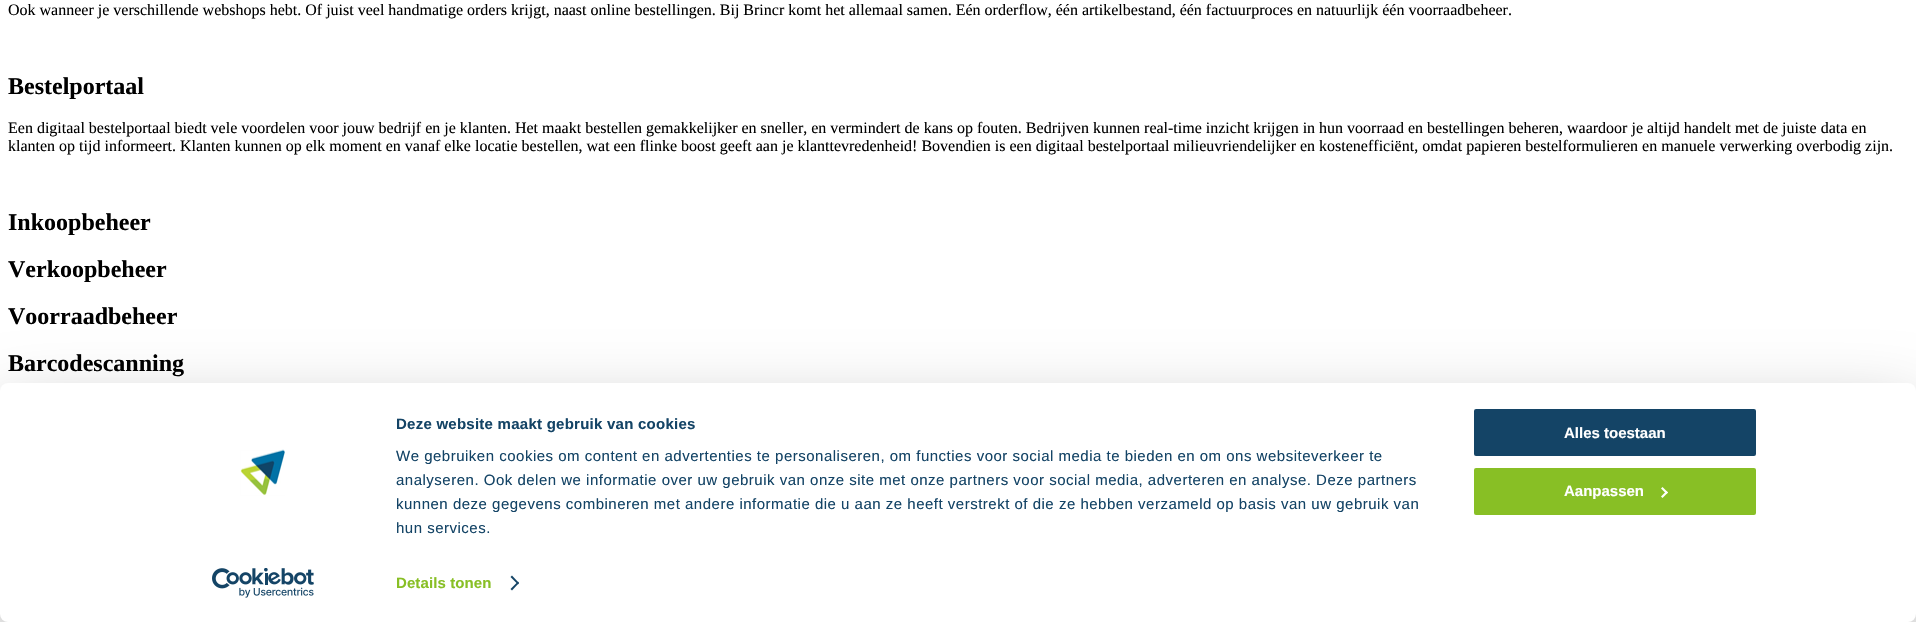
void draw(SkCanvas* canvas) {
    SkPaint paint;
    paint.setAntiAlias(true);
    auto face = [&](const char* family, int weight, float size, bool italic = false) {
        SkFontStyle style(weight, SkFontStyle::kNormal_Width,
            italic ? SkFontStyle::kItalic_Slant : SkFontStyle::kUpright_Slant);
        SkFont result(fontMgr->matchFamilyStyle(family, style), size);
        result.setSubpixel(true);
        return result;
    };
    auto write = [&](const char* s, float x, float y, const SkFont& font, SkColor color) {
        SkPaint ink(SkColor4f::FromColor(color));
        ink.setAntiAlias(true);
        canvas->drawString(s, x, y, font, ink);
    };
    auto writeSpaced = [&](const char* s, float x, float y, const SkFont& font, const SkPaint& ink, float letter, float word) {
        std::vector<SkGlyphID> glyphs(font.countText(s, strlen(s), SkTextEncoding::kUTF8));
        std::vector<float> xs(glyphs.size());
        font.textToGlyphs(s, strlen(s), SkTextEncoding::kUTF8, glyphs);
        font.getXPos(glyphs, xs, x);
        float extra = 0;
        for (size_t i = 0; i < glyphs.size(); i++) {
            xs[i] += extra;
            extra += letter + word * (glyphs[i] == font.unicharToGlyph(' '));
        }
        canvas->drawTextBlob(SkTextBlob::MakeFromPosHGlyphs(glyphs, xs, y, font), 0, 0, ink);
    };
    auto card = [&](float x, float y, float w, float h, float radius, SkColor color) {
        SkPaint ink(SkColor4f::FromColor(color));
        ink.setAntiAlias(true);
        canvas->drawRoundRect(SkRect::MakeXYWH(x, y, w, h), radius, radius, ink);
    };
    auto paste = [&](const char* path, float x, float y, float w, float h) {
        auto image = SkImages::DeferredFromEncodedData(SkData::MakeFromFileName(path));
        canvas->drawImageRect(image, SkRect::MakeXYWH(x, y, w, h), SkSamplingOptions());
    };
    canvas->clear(SK_ColorWHITE);
    auto kFont1 = face("Liberation Serif", 400, 16);
    write("Ook wanneer je verschillende webshops hebt. Of juist veel handmatige orders krijgt, naast online bestellingen. Bij Brincr komt het allemaal samen. Eén orderflow, één artikelbestand, één factuurproces en natuurlijk één voorraadbeheer.", 8, 15, kFont1, SK_ColorBLACK);
    auto kFont2 = face("Liberation Serif", 700, 24);
    write("Bestelportaal", 8, 94, kFont2, SK_ColorBLACK);
    write("Een digitaal bestelportaal biedt vele voordelen voor jouw bedrijf en je klanten. Het maakt bestellen gemakkelijker en sneller, en vermindert de kans op fouten. Bedrijven kunnen real-time inzicht krijgen in hun voorraad en bestellingen beheren, waardoor je altijd handelt met de juiste data en", 8, 133, kFont1, SK_ColorBLACK);
    write("klanten op tijd informeert. Klanten kunnen op elk moment en vanaf elke locatie bestellen, wat een flinke boost geeft aan je klanttevredenheid! Bovendien is een digitaal bestelportaal milieuvriendelijker en kostenefficiënt, omdat papieren bestelformulieren en manuele verwerking overbodig zijn.", 8, 151, kFont1, SK_ColorBLACK);
    write("Inkoopbeheer", 8, 230, kFont2, SK_ColorBLACK);
    write("Verkoopbeheer", 8, 277, kFont2, SK_ColorBLACK);
    write("Voorraadbeheer", 8, 324, kFont2, SK_ColorBLACK);
    write("Barcodescanning", 8, 371, kFont2, SK_ColorBLACK);
    paint.setColor(SkColorSetARGB(77, 0, 0, 0));
    paint.setMaskFilter(SkMaskFilter::MakeBlur(kNormal_SkBlurStyle, 35));
    canvas->drawRoundRect(SkRect::MakeXYWH(0, 413, 1916, 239), 8, 8, paint);
    paint.setMaskFilter(nullptr);
    card(0, 383, 1916, 239, 8, SK_ColorWHITE);
    paste("pic1.png", 240, 449, 45, 47);
    paste("pic2.png", 212, 568, 102, 30);
    auto kFont3 = face("Liberation Sans", 700, 15);
    paint.setColor(SkColorSetRGB(20, 68, 102));
    writeSpaced("Deze website maakt gebruik van cookies", 396, 429, kFont3, paint, 0.25f, 0);
    auto kFont4 = face("Liberation Sans", 400, 15);
    writeSpaced("We gebruiken cookies om content en advertenties te personaliseren, om functies voor social media te bieden en om ons websiteverkeer te", 396, 461, kFont4, paint, 0.5f, 0);
    writeSpaced("analyseren. Ook delen we informatie over uw gebruik van onze site met onze partners voor social media, adverteren en analyse. Deze partners", 396, 485, kFont4, paint, 0.5f, 0);
    writeSpaced("kunnen deze gegevens combineren met andere informatie die u aan ze heeft verstrekt of die ze hebben verzameld op basis van uw gebruik van", 396, 509, kFont4, paint, 0.5f, 0);
    writeSpaced("hun services.", 396, 533, kFont4, paint, 0.5f, 0);
    paint.setColor(SkColorSetRGB(136, 191, 37));
    writeSpaced("Details tonen", 396, 588, kFont3, paint, 0.1f, 0);
    paint.setColor(SkColorSetRGB(20, 68, 102));
    canvas->drawPath(SkPathBuilder().moveTo(512, 575.5f).lineTo(519, 583).lineTo(518, 584.5f).lineTo(510.5f, 577).close().detach(), paint);
    canvas->drawPath(SkPathBuilder().moveTo(518, 581.5f).lineTo(519, 583).lineTo(512, 590.5f).lineTo(510.5f, 589).close().detach(), paint);
    canvas->drawRoundRect(SkRect::MakeXYWH(1473, 408, 284, 49), 3, 3, paint);
    paint.setStyle(SkPaint::kStroke_Style);
    paint.setStrokeWidth(2);
    paint.setColor(SK_ColorWHITE);
    canvas->drawRoundRect(SkRect::MakeXYWH(1473, 408, 284, 49), 3, 3, paint);
    write("Alles toestaan", 1564, 438, kFont3, SK_ColorWHITE);
    paint.setStyle(SkPaint::kFill_Style);
    paint.setColor(SkColorSetRGB(136, 191, 37));
    canvas->drawRoundRect(SkRect::MakeXYWH(1473, 467, 284, 49), 3, 3, paint);
    paint.setStyle(SkPaint::kStroke_Style);
    paint.setColor(SK_ColorWHITE);
    canvas->drawRoundRect(SkRect::MakeXYWH(1473, 467, 284, 49), 3, 3, paint);
    write("Aanpassen", 1564, 496, kFont3, SK_ColorWHITE);
    paint.setStyle(SkPaint::kFill_Style);
    canvas->drawPath(SkPathBuilder().moveTo(1662.5f, 487).lineTo(1668, 492.5f).lineTo(1666.5f, 494).lineTo(1661, 488.5f).close().detach(), paint);
    canvas->drawPath(SkPathBuilder().moveTo(1666.5f, 491).lineTo(1668, 492.5f).lineTo(1662.5f, 498).lineTo(1661, 496.5f).close().detach(), paint);
}
